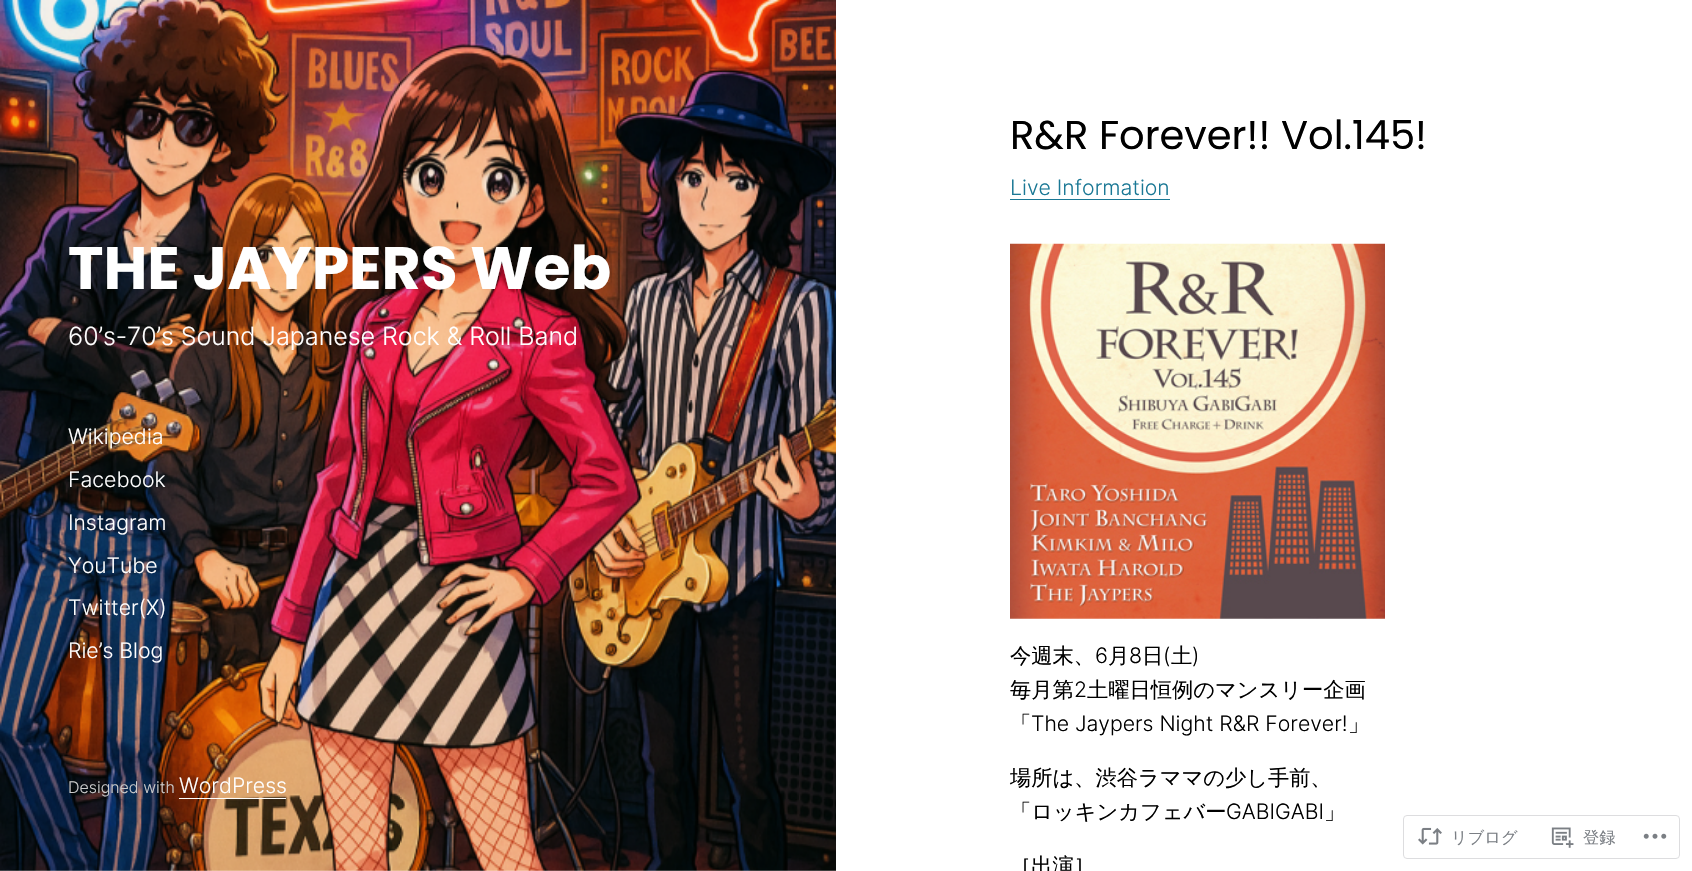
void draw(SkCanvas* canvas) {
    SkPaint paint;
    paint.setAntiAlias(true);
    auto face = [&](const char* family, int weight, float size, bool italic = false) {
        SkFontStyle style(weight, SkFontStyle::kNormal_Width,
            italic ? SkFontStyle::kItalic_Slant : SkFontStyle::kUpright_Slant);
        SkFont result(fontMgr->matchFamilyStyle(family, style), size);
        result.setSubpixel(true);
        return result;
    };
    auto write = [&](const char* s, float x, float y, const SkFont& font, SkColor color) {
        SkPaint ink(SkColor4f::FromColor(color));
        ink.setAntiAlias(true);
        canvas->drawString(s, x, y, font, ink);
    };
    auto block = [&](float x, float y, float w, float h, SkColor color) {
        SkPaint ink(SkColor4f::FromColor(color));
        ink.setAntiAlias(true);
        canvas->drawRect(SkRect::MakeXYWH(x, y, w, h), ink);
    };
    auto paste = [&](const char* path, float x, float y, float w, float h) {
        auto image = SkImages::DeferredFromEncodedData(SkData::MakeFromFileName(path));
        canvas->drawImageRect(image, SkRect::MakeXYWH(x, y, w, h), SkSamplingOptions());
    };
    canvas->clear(SK_ColorWHITE);
    paste("pic1.png", 0, 0, 836, 871);
    auto kFont1 = face("Poppins", 700, 60);
    write("THE JAYPERS Web", 68, 289, kFont1, SK_ColorWHITE);
    auto kFont2 = face("Inter", 300, 25);
    write("60’s-70’s Sound Japanese Rock & Roll Band", 68, 345, kFont2, SK_ColorWHITE);
    auto kFont3 = face("Inter", 300, 21.25f);
    write("Wikipedia", 68, 444, kFont3, SK_ColorWHITE);
    write("Facebook", 68, 487, kFont3, SK_ColorWHITE);
    write("Instagram", 68, 530, kFont3, SK_ColorWHITE);
    write("YouTube", 68, 573, kFont3, SK_ColorWHITE);
    write("Twitter(X)", 68, 615, kFont3, SK_ColorWHITE);
    write("Rie’s Blog", 68, 658, kFont3, SK_ColorWHITE);
    auto kFont4 = face("Inter", 300, 16);
    write("Designed with", 68, 793, kFont4, SkColorSetRGB(203, 203, 203));
    write("WordPress", 179, 793, kFont3, SK_ColorWHITE);
    block(179, 798, 107, 1, SK_ColorWHITE);
    auto kFont5 = face("Poppins", 400, 40);
    write("R&R Forever!! Vol.145!", 1010, 149, kFont5, SK_ColorBLACK);
    write("Live Information", 1010, 195, kFont3, SkColorSetRGB(26, 120, 149));
    block(1010, 199, 160, 1, SkColorSetRGB(26, 120, 149));
    paste("pic2.png", 1010, 243, 375, 376);
    auto kFont6 = face("WenQuanYi Zen Hei", 500, 21.25f);
    write("今週末、", 1010, 663, kFont6, SK_ColorBLACK);
    write("6", 1095, 663, kFont3, SK_ColorBLACK);
    write("月", 1108, 663, kFont6, SK_ColorBLACK);
    write("8", 1129, 663, kFont3, SK_ColorBLACK);
    write("日", 1142, 663, kFont6, SK_ColorBLACK);
    write("(", 1163, 663, kFont3, SK_ColorBLACK);
    write("土", 1171, 663, kFont6, SK_ColorBLACK);
    write(")", 1192, 663, kFont3, SK_ColorBLACK);
    write("毎月第", 1010, 697, kFont6, SK_ColorBLACK);
    write("2", 1074, 697, kFont3, SK_ColorBLACK);
    write("土曜日恒例のマンスリー企画", 1087, 697, kFont6, SK_ColorBLACK);
    write("「", 1010, 731, kFont6, SK_ColorBLACK);
    write("The Jaypers Night R&R Forever!", 1031, 731, kFont3, SK_ColorBLACK);
    write("」", 1348, 731, kFont6, SK_ColorBLACK);
    write("場所は、渋谷ラママの少し手前、", 1010, 785, kFont6, SK_ColorBLACK);
    write("「ロッキンカフェバー", 1010, 819, kFont6, SK_ColorBLACK);
    write("GABIGABI", 1226, 819, kFont3, SK_ColorBLACK);
    write("」", 1324, 819, kFont6, SK_ColorBLACK);
    write("［出演］", 1010, 873, kFont6, SK_ColorBLACK);
    paint.setStyle(SkPaint::kStroke_Style);
    paint.setStrokeWidth(1);
    paint.setColor(SkColorSetRGB(221, 221, 223));
    canvas->drawRoundRect(SkRect::MakeXYWH(1403.5f, 815.5f, 276, 43), 3.5f, 3.5f, paint);
    paste("pic3.png", 1418, 827, 24, 18);
    auto kFont7 = face("WenQuanYi Zen Hei", 500, 16.25f);
    write("リブログ", 1451, 843, kFont7, SkColorSetRGB(123, 127, 133));
    paste("pic4.png", 1551, 827, 23, 21);
    write("登録", 1583, 843, kFont7, SkColorSetRGB(123, 127, 133));
    paste("pic5.png", 1643, 833, 24, 6);
}
